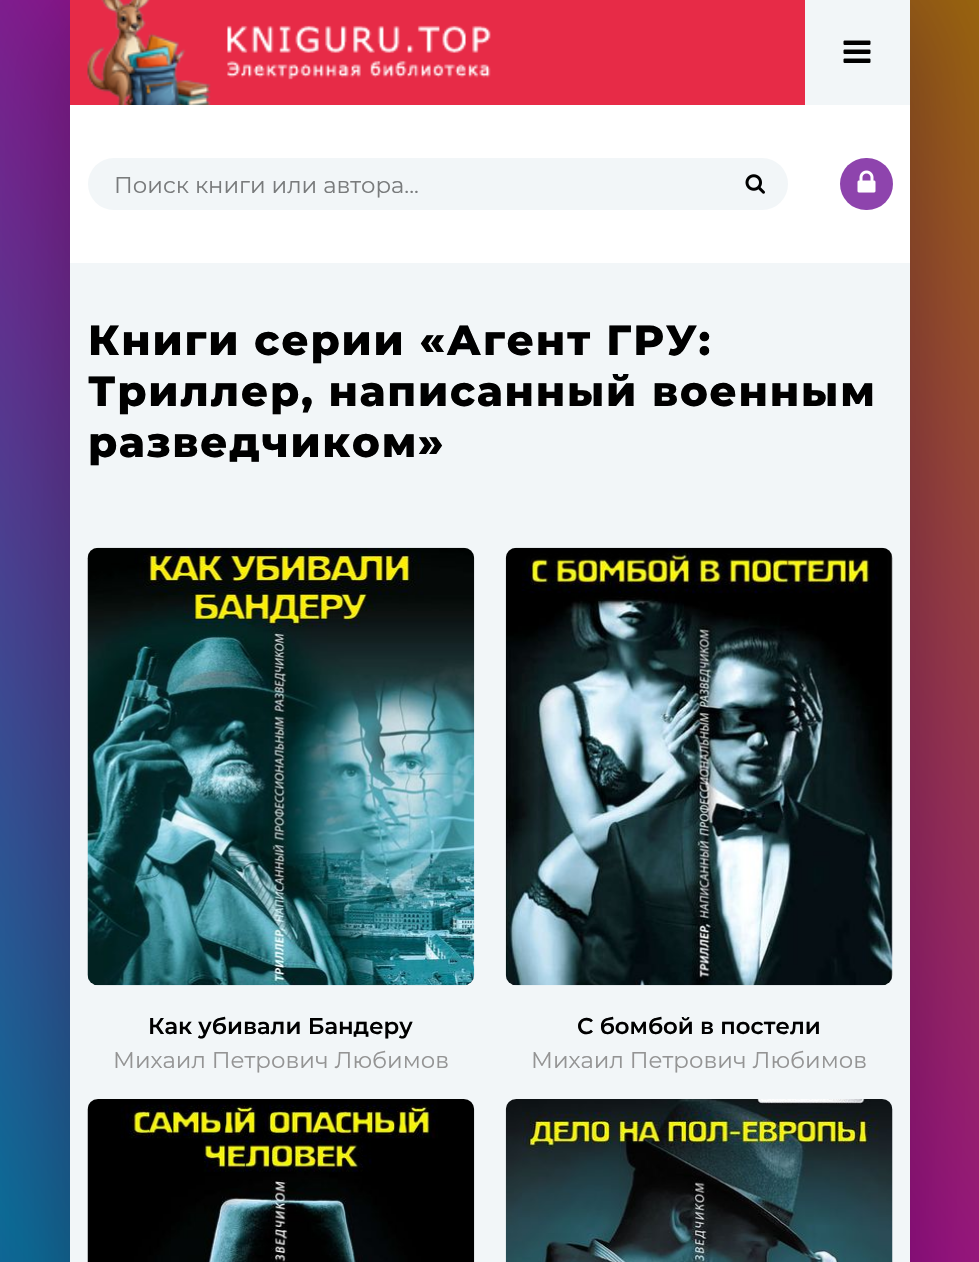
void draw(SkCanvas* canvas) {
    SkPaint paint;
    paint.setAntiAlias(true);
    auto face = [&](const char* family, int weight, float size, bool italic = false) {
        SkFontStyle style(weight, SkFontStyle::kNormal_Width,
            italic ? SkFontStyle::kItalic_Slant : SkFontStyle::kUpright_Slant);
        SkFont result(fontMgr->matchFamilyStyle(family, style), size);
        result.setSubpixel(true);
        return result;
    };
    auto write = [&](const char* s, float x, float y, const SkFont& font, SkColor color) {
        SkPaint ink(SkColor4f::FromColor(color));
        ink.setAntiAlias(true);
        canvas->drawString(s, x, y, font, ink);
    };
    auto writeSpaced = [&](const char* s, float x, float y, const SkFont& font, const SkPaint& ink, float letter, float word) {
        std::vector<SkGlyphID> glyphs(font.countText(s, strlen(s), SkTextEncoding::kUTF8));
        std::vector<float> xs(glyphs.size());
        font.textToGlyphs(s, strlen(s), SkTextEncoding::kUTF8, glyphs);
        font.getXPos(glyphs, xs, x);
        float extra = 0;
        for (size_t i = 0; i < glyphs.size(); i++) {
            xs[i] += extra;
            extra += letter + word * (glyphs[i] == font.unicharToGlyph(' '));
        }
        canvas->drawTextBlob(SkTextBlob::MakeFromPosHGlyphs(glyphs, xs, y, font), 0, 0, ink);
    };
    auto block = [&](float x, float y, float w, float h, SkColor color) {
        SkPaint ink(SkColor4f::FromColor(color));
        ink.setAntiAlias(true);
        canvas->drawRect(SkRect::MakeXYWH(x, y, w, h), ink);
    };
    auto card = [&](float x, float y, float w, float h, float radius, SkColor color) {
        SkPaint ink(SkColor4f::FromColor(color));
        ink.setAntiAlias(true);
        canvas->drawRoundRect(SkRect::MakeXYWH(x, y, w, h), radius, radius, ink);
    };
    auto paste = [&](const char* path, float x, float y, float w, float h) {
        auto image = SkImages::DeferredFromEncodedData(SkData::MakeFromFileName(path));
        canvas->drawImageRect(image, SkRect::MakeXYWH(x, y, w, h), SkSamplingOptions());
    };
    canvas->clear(SK_ColorWHITE);
    {
        const SkColor colors[] = {SkColorSetRGB(85, 13, 154), SkColorSetRGB(13, 109, 154), SkColorSetRGB(154, 13, 142), SkColorSetRGB(154, 101, 13)};
        const float stops[] = {0, 0.33f, 0.67f, 1};
        const SkPoint ends[] = {{-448, 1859}, {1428, 776}};
        paint.setShader(SkGradientShader::MakeLinear(ends, colors, stops, 4, SkTileMode::kClamp));
        paint.setAlpha(255);
    }
    canvas->drawRect(SkRect::MakeXYWH(0, 0, 979, 1262), paint);
    paint.setShader(nullptr);
    paint.setColor(SkColorSetARGB(77, 0, 0, 0));
    paint.setMaskFilter(SkMaskFilter::MakeBlur(kNormal_SkBlurStyle, 52.5f));
    canvas->drawRect(SkRect::MakeXYWH(70, 0, 840, 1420), paint);
    paint.setMaskFilter(nullptr);
    block(70, 263, 840, 999, SkColorSetRGB(242, 246, 248));
    block(70, 0, 735, 105, SkColorSetRGB(231, 43, 71));
    paste("pic1.png", 87, 0, 404, 105);
    block(805, 0, 105, 105, SkColorSetRGB(242, 246, 248));
    paste("pic2.png", 843, 40, 28, 23);
    block(70, 105, 840, 158, SK_ColorWHITE);
    card(88, 158, 700, 52, 26, SkColorSetRGB(242, 246, 248));
    auto kFont1 = face("Montserrat", 400, 22.75f);
    write("Поиск книги или автора...", 114, 193, kFont1, SkColorSetRGB(121, 123, 124));
    paste("pic3.png", 745, 174, 20, 20);
    card(840, 158, 53, 52, 26, SkColorSetRGB(142, 68, 173));
    paste("pic4.png", 857, 170, 19, 23);
    auto kFont2 = face("Montserrat", 800, 42);
    paint.setColor(SK_ColorBLACK);
    writeSpaced("Книги серии «Агент ГРУ:", 88, 355, kFont2, paint, 1.75f, 0);
    writeSpaced("Триллер, написанный военным", 88, 406, kFont2, paint, 1.75f, 0);
    writeSpaced("разведчиком»", 88, 457, kFont2, paint, 1.75f, 0);
    paste("pic5.png", 87, 547, 388, 439);
    auto kFont3 = face("Montserrat", 600, 22.75f);
    write("Как убивали Бандеру", 148, 1034, kFont3, SK_ColorBLACK);
    write("Михаил Петрович Любимов", 113, 1068, kFont1, SkColorSetRGB(148, 148, 148));
    paste("pic6.png", 505, 547, 388, 439);
    write("С бомбой в постели", 577, 1034, kFont3, SK_ColorBLACK);
    write("Михаил Петрович Любимов", 531, 1068, kFont1, SkColorSetRGB(148, 148, 148));
    paste("pic7.png", 87, 1099, 388, 163);
    paste("pic8.png", 505, 1099, 388, 163);
}
